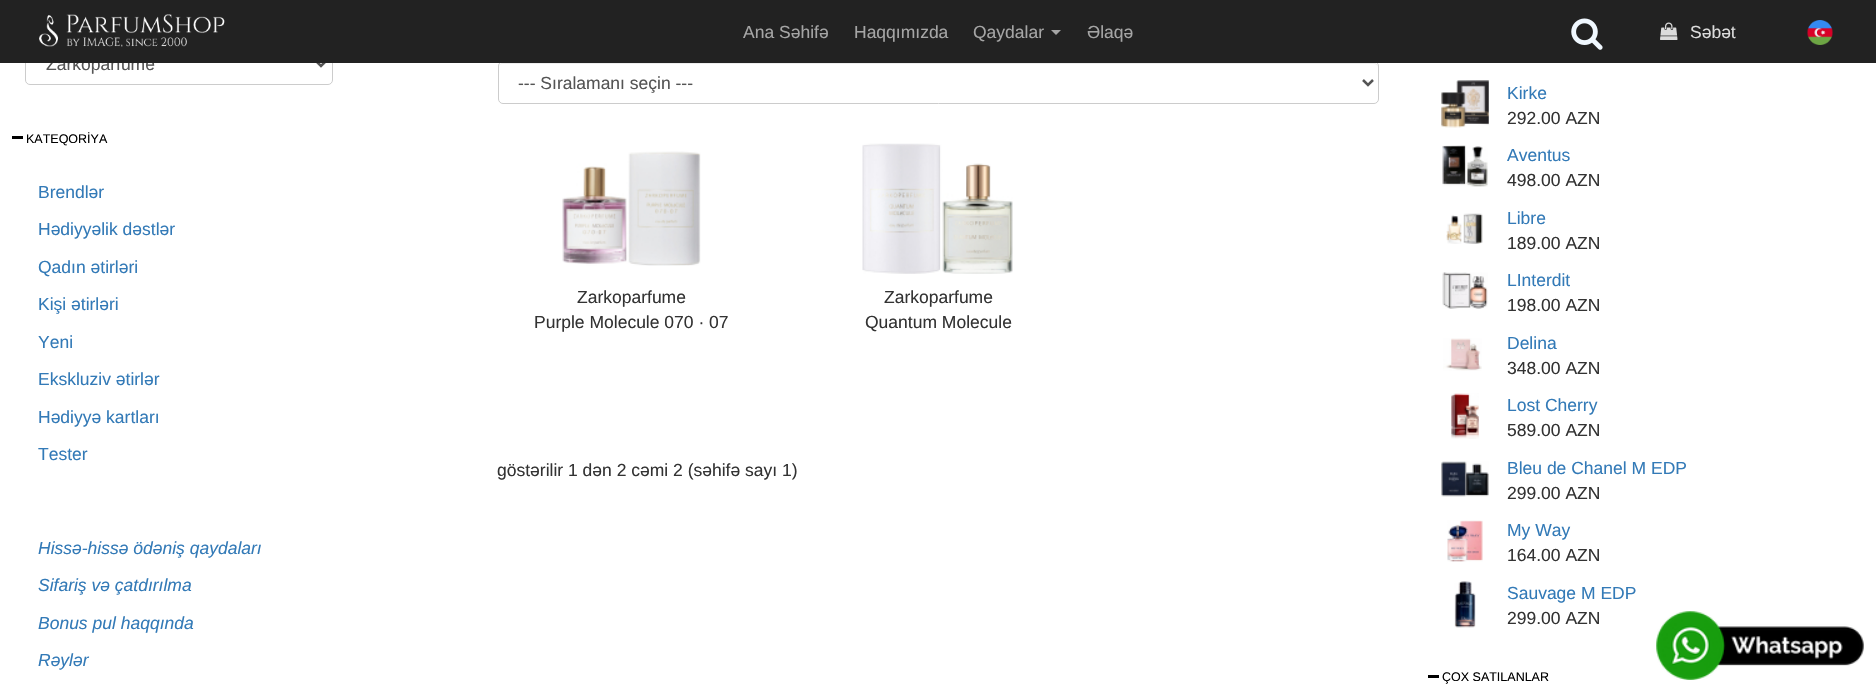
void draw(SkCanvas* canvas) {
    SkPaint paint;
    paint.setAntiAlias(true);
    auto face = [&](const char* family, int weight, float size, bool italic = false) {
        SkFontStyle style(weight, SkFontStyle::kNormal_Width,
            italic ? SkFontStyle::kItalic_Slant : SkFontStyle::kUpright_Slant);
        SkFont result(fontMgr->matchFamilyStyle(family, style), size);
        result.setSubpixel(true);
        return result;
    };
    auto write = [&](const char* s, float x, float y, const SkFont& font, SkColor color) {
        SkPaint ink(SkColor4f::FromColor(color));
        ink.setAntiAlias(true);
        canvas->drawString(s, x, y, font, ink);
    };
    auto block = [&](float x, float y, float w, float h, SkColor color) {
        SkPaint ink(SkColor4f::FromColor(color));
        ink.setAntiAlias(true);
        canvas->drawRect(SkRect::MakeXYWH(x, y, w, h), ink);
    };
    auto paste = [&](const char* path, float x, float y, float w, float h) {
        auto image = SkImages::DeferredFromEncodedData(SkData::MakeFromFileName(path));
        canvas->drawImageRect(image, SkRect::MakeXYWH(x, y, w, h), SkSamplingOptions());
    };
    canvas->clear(SK_ColorWHITE);
    paint.setStyle(SkPaint::kStroke_Style);
    paint.setStrokeWidth(1);
    paint.setColor(SkColorSetRGB(204, 204, 204));
    canvas->drawRoundRect(SkRect::MakeXYWH(25.5f, 43.5f, 307, 41), 4.5f, 4.5f, paint);
    paint.setStrokeWidth(2.5f);
    paint.setColor(SkColorSetRGB(85, 85, 85));
    canvas->drawPath(SkPathBuilder().moveTo(316, 61).lineTo(321, 66).lineTo(326, 61).detach(), paint);
    auto kFont1 = face("Liberation Sans", 400, 17.5f);
    write("Zarkoparfume", 46, 70, kFont1, SkColorSetRGB(85, 85, 85));
    paint.setStyle(SkPaint::kFill_Style);
    paint.setColor(SkColorSetRGB(236, 236, 236));
    canvas->drawPath(SkPathBuilder().moveTo(502, 64).lineTo(1374, 64).cubicTo(1376, 64, 1378, 65, 1378, 68).cubicTo(1378, 65, 1377, 63, 1374, 63).lineTo(503, 63).cubicTo(500, 63, 499, 65, 499, 68).cubicTo(499, 65, 500, 64, 502, 64).close().detach(), paint);
    paint.setStyle(SkPaint::kStroke_Style);
    paint.setStrokeWidth(1);
    paint.setColor(SkColorSetRGB(204, 204, 204));
    canvas->drawRoundRect(SkRect::MakeXYWH(498.5f, 61.5f, 880, 42), 4.5f, 4.5f, paint);
    block(0, 0, 1876, 63, SkColorSetRGB(34, 34, 34));
    paste("pic1.png", 39, 14, 186, 33);
    write("Ana Səhifə", 743, 38, kFont1, SkColorSetRGB(165, 165, 165));
    write("Haqqımızda", 854, 38, kFont1, SkColorSetRGB(165, 165, 165));
    write("Qaydalar", 973, 38, kFont1, SkColorSetRGB(165, 165, 165));
    paint.setStyle(SkPaint::kFill_Style);
    paint.setColor(SkColorSetRGB(165, 165, 165));
    canvas->drawPath(SkPathBuilder().moveTo(1051, 30).lineTo(1061, 30).lineTo(1056, 35).close().detach(), paint);
    write("Əlaqə", 1087, 38, kFont1, SkColorSetRGB(165, 165, 165));
    paste("pic2.png", 1571, 18, 32, 32);
    paste("pic3.png", 1660, 22, 18, 18);
    write("Səbət", 1690, 38, kFont1, SkColorSetRGB(220, 220, 220));
    paste("pic4.png", 1807, 20, 26, 25);
    block(12, 136, 11, 3, SK_ColorBLACK);
    auto kFont2 = face("Liberation Sans", 400, 12.5f);
    write("KATEQORİYA", 26, 143, kFont2, SK_ColorBLACK);
    write("Brendlər", 38, 198, kFont1, SkColorSetRGB(51, 122, 183));
    write("Hədiyyəlik dəstlər", 38, 235, kFont1, SkColorSetRGB(51, 122, 183));
    write("Qadın ətirləri", 38, 273, kFont1, SkColorSetRGB(51, 122, 183));
    write("Kişi ətirləri", 38, 310, kFont1, SkColorSetRGB(51, 122, 183));
    write("Yeni", 38, 348, kFont1, SkColorSetRGB(51, 122, 183));
    write("Ekskluziv ətirlər", 38, 385, kFont1, SkColorSetRGB(51, 122, 183));
    write("Hədiyyə kartları", 38, 423, kFont1, SkColorSetRGB(51, 122, 183));
    write("Tester", 38, 460, kFont1, SkColorSetRGB(51, 122, 183));
    auto kFont3 = face("Liberation Sans", 400, 17.5f, true);
    write("Hissə-hissə ödəniş qaydaları", 38, 554, kFont3, SkColorSetRGB(51, 122, 183));
    write("Sifariş və çatdırılma", 38, 591, kFont3, SkColorSetRGB(51, 122, 183));
    write("Bonus pul haqqında", 38, 629, kFont3, SkColorSetRGB(51, 122, 183));
    write("Rəylər", 38, 666, kFont3, SkColorSetRGB(51, 122, 183));
    paint.setStyle(SkPaint::kStroke_Style);
    paint.setStrokeWidth(2.5f);
    paint.setColor(SkColorSetRGB(85, 85, 85));
    canvas->drawPath(SkPathBuilder().moveTo(1363, 80).lineTo(1368, 85).lineTo(1373, 80).detach(), paint);
    write("--- Sıralamanı seçin ---", 518, 89, kFont1, SkColorSetRGB(85, 85, 85));
    paste("pic5.png", 562, 151, 139, 115);
    write("Zarkoparfume", 577, 303, kFont1, SkColorSetRGB(51, 51, 51));
    write("Purple Molecule 070 · 07", 534, 328, kFont1, SkColorSetRGB(51, 51, 51));
    paste("pic6.png", 862, 143, 151, 131);
    write("Zarkoparfume", 884, 303, kFont1, SkColorSetRGB(51, 51, 51));
    write("Quantum Molecule", 865, 328, kFont1, SkColorSetRGB(51, 51, 51));
    write("göstərilir 1 dən 2 cəmi 2 (səhifə sayı 1)", 497, 476, kFont1, SkColorSetRGB(51, 51, 51));
    paste("pic7.png", 1441, 80, 48, 48);
    write("Kirke", 1507, 99, kFont1, SkColorSetRGB(51, 122, 183));
    write("292.00 AZN", 1507, 124, kFont1, SkColorSetRGB(51, 51, 51));
    paste("pic8.png", 1442, 145, 46, 42);
    write("Aventus", 1507, 161, kFont1, SkColorSetRGB(51, 122, 183));
    write("498.00 AZN", 1507, 186, kFont1, SkColorSetRGB(51, 51, 51));
    paste("pic9.png", 1446, 213, 37, 31);
    write("Libre", 1507, 224, kFont1, SkColorSetRGB(51, 122, 183));
    write("189.00 AZN", 1507, 249, kFont1, SkColorSetRGB(51, 51, 51));
    paste("pic10.png", 1442, 272, 46, 37);
    write("LInterdit", 1507, 286, kFont1, SkColorSetRGB(51, 122, 183));
    write("198.00 AZN", 1507, 311, kFont1, SkColorSetRGB(51, 51, 51));
    paste("pic11.png", 1443, 338, 39, 33);
    write("Delina", 1507, 349, kFont1, SkColorSetRGB(51, 122, 183));
    write("348.00 AZN", 1507, 374, kFont1, SkColorSetRGB(51, 51, 51));
    paste("pic12.png", 1451, 393, 28, 46);
    write("Lost Cherry", 1507, 411, kFont1, SkColorSetRGB(51, 122, 183));
    write("589.00 AZN", 1507, 436, kFont1, SkColorSetRGB(51, 51, 51));
    paste("pic13.png", 1441, 461, 48, 36);
    write("Bleu de Chanel M EDP", 1507, 474, kFont1, SkColorSetRGB(51, 122, 183));
    write("299.00 AZN", 1507, 499, kFont1, SkColorSetRGB(51, 51, 51));
    paste("pic14.png", 1447, 520, 36, 42);
    write("My Way", 1507, 536, kFont1, SkColorSetRGB(51, 122, 183));
    write("164.00 AZN", 1507, 561, kFont1, SkColorSetRGB(51, 51, 51));
    paste("pic15.png", 1454, 581, 22, 47);
    write("Sauvage M EDP", 1507, 599, kFont1, SkColorSetRGB(51, 122, 183));
    write("299.00 AZN", 1507, 624, kFont1, SkColorSetRGB(51, 51, 51));
    block(1428, 675, 11, 3, SK_ColorBLACK);
    write("ÇOX SATILANLAR", 1442, 681, kFont2, SK_ColorBLACK);
    paste("pic16.png", 1656, 611, 208, 69);
}
